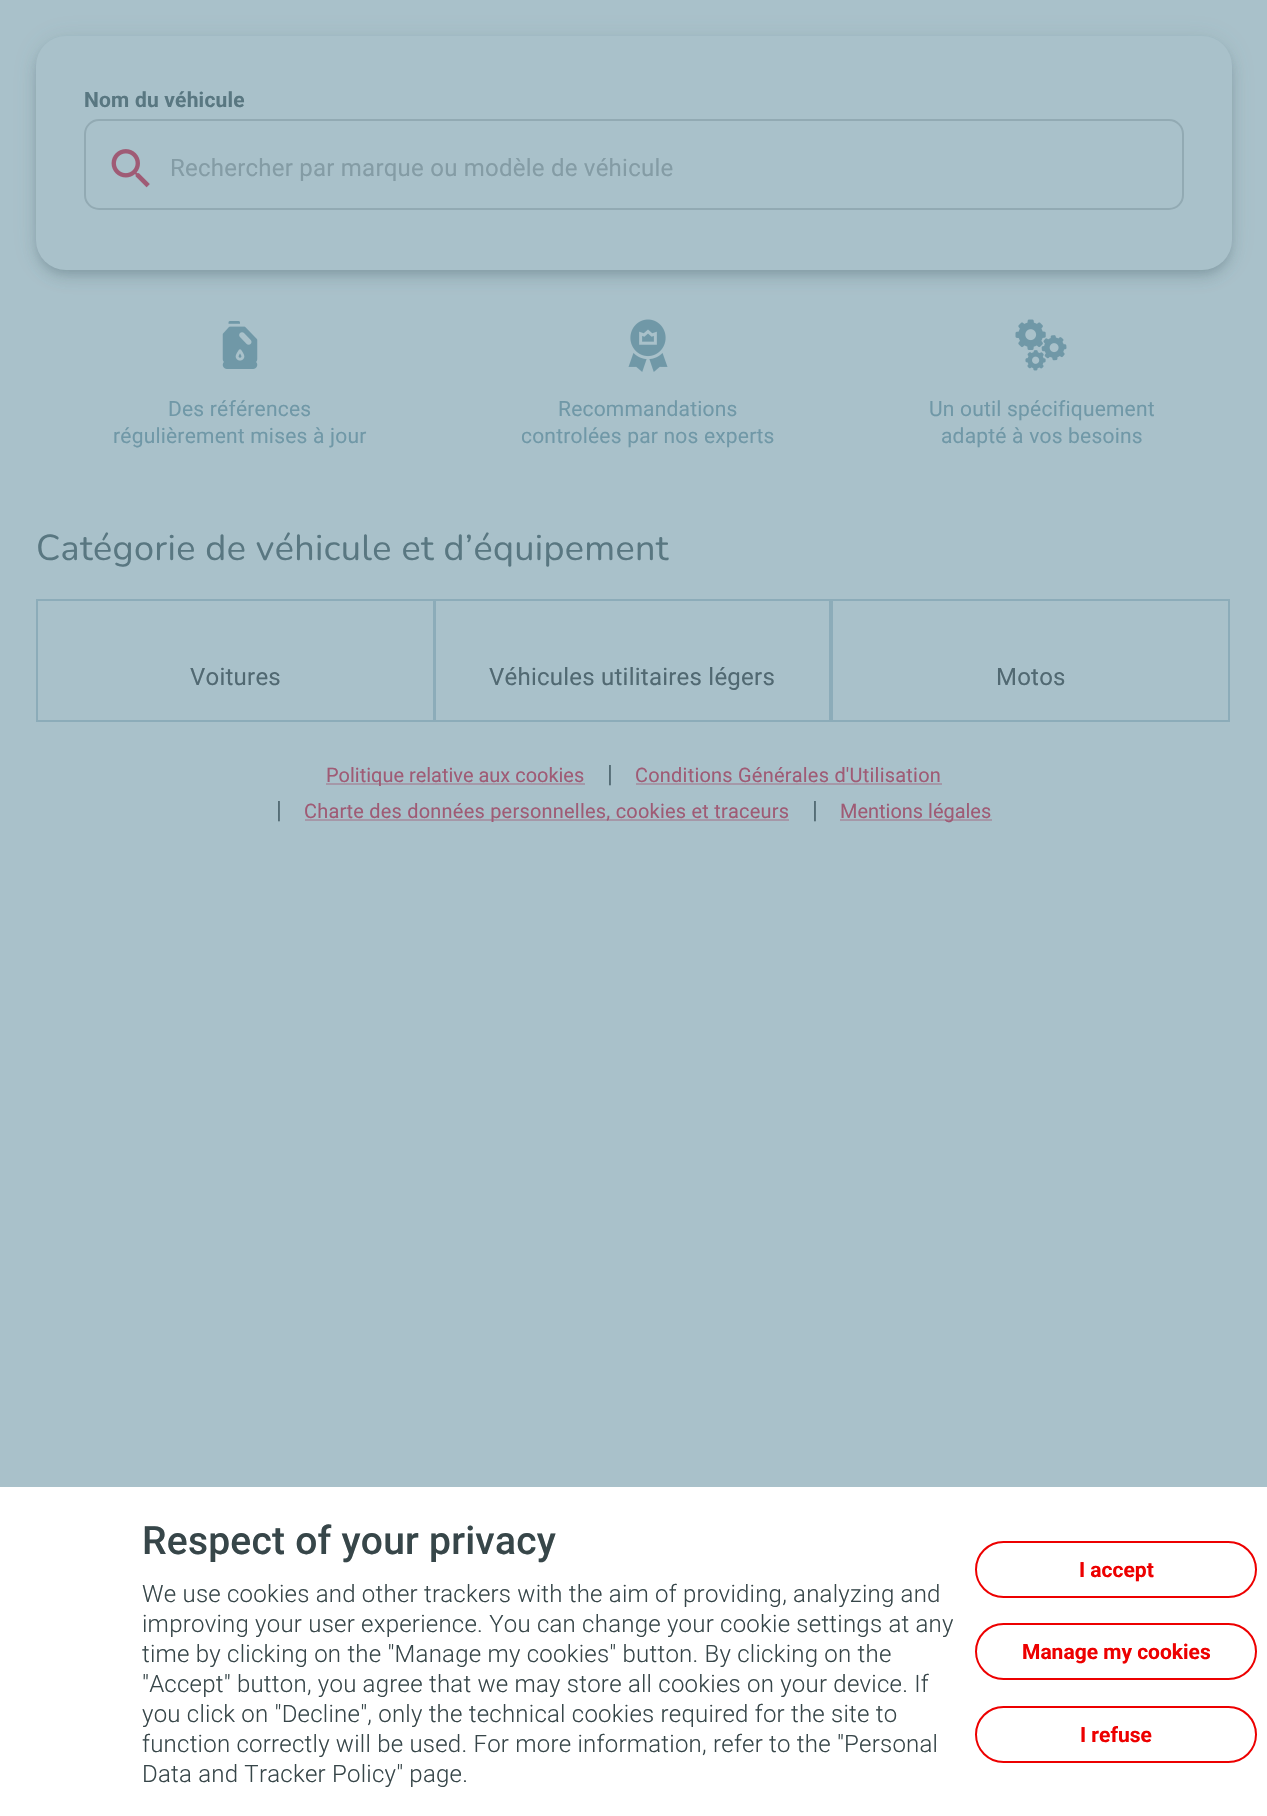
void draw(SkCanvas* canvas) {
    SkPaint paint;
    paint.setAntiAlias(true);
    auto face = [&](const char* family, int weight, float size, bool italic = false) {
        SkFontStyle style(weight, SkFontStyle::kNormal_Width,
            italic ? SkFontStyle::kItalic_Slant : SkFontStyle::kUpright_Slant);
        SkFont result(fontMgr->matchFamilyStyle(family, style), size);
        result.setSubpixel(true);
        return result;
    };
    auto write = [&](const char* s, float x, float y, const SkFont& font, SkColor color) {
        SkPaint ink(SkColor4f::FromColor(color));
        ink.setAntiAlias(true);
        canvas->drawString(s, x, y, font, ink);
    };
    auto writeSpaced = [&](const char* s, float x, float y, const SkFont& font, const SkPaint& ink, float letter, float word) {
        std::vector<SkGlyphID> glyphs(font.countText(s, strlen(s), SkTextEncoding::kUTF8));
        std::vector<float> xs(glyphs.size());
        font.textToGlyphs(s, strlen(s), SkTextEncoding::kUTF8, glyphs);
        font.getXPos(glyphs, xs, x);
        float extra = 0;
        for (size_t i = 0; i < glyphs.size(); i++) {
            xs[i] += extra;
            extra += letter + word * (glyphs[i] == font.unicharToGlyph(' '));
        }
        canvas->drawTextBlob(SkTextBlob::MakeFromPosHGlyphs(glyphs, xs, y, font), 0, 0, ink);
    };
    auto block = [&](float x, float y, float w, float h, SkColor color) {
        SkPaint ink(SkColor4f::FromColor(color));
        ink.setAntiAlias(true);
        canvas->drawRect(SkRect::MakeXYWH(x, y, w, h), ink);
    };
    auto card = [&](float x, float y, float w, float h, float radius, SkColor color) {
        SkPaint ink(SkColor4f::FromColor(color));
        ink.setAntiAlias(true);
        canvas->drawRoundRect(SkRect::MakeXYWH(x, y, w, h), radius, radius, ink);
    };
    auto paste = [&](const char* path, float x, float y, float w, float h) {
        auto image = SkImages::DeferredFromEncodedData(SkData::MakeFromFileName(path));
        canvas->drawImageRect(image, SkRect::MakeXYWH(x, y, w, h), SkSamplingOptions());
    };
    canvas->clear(SkColorSetRGB(169, 193, 202));
    paint.setColor(SkColorSetARGB(31, 67, 91, 100));
    paint.setMaskFilter(SkMaskFilter::MakeBlur(kNormal_SkBlurStyle, 13.5f));
    canvas->drawRoundRect(SkRect::MakeXYWH(36, 38, 1196, 234), 30, 30, paint);
    paint.setMaskFilter(nullptr);
    paint.setColor(SkColorSetARGB(36, 67, 91, 100));
    paint.setMaskFilter(SkMaskFilter::MakeBlur(kNormal_SkBlurStyle, 7.5f));
    canvas->drawRoundRect(SkRect::MakeXYWH(36, 45, 1196, 234), 30, 30, paint);
    paint.setMaskFilter(nullptr);
    paint.setColor(SkColorSetARGB(51, 67, 91, 100));
    paint.setMaskFilter(SkMaskFilter::MakeBlur(kNormal_SkBlurStyle, 4));
    canvas->drawRoundRect(SkRect::MakeXYWH(38, 42, 1192, 231), 29, 29, paint);
    paint.setMaskFilter(nullptr);
    card(36, 36, 1196, 234, 30, SkColorSetRGB(169, 193, 202));
    auto kFont1 = face("Roboto", 700, 21);
    paint.setColor(SkColorSetRGB(89, 119, 129));
    writeSpaced("Nom du véhicule", 84, 107, kFont1, paint, 0.2f, 0);
    paste("pic1.png", 111, 149, 39, 39);
    paint.setStyle(SkPaint::kStroke_Style);
    paint.setStrokeWidth(2);
    paint.setColor(SkColorSetRGB(146, 170, 179));
    canvas->drawRoundRect(SkRect::MakeXYWH(85, 120, 1098, 89), 14, 14, paint);
    auto kFont2 = face("Roboto", 400, 24);
    paint.setStyle(SkPaint::kFill_Style);
    paint.setColor(SkColorSetRGB(132, 156, 165));
    writeSpaced("Rechercher par marque ou modèle de véhicule", 170, 176, kFont2, paint, 0.23f, 0);
    paste("pic2.png", 222, 321, 36, 48);
    auto kFont3 = face("Roboto", 400, 21);
    paint.setColor(SkColorSetRGB(112, 152, 167));
    writeSpaced("Des références", 168, 416, kFont3, paint, 0.2f, 0);
    writeSpaced("régulièrement mises à jour", 113, 443, kFont3, paint, 0.2f, 0);
    paste("pic3.png", 628, 319, 40, 53);
    writeSpaced("Recommandations", 558, 416, kFont3, paint, 0.2f, 0);
    writeSpaced("controlées par nos experts", 521, 443, kFont3, paint, 0.2f, 0);
    paste("pic4.png", 1015, 319, 52, 52);
    writeSpaced("Un outil spécifiquement", 929, 416, kFont3, paint, 0.2f, 0);
    writeSpaced("adapté à vos besoins", 941, 443, kFont3, paint, 0.2f, 0);
    auto kFont4 = face("Nunito", 400, 36);
    paint.setColor(SkColorSetRGB(89, 119, 129));
    writeSpaced("Catégorie de véhicule et d’équipement", 36, 560, kFont4, paint, 0.35f, 0);
    paint.setStyle(SkPaint::kStroke_Style);
    paint.setColor(SkColorSetRGB(140, 172, 185));
    canvas->drawRect(SkRect::MakeXYWH(37, 600, 397, 121), paint);
    paint.setStyle(SkPaint::kFill_Style);
    paint.setColor(SkColorSetRGB(81, 105, 114));
    writeSpaced("Voitures", 190, 685, kFont2, paint, 0.23f, 0);
    paint.setStyle(SkPaint::kStroke_Style);
    paint.setColor(SkColorSetRGB(140, 172, 185));
    canvas->drawRect(SkRect::MakeXYWH(435, 600, 395, 121), paint);
    paint.setStyle(SkPaint::kFill_Style);
    paint.setColor(SkColorSetRGB(81, 105, 114));
    writeSpaced("Véhicules utilitaires légers", 489, 685, kFont2, paint, 0.23f, 0);
    paint.setStyle(SkPaint::kStroke_Style);
    paint.setColor(SkColorSetRGB(140, 172, 185));
    canvas->drawRect(SkRect::MakeXYWH(832, 600, 397, 121), paint);
    paint.setStyle(SkPaint::kFill_Style);
    paint.setColor(SkColorSetRGB(81, 105, 114));
    writeSpaced("Motos", 996, 685, kFont2, paint, 0.23f, 0);
    block(326, 783, 259, 2, SkColorSetRGB(165, 152, 168));
    auto kFont5 = face("Roboto", 400, 19.95f);
    write("Politique relative aux cookies", 326, 782, kFont5, SkColorSetRGB(159, 91, 117));
    writeSpaced("|", 607, 782, kFont2, paint, 0.23f, 0);
    paint.setColor(SkColorSetRGB(159, 91, 117));
    writeSpaced("Conditions Générales d'Utilisation", 635, 782, kFont5, paint, 0.23f, 0);
    block(636, 783, 306, 2, SkColorSetRGB(165, 152, 168));
    paint.setColor(SkColorSetRGB(81, 105, 114));
    writeSpaced("|", 276, 818, kFont2, paint, 0.23f, 0);
    block(305, 819, 484, 2, SkColorSetRGB(165, 152, 168));
    paint.setColor(SkColorSetRGB(159, 91, 117));
    writeSpaced("Charte des données personnelles, cookies et traceurs", 304, 818, kFont5, paint, 0.23f, 0);
    paint.setColor(SkColorSetRGB(81, 105, 114));
    writeSpaced("|", 812, 818, kFont2, paint, 0.23f, 0);
    block(840, 819, 152, 2, SkColorSetRGB(165, 152, 168));
    write("Mentions légales", 840, 818, kFont5, SkColorSetRGB(159, 91, 117));
    block(0, 1487, 1267, 329, SK_ColorWHITE);
    auto kFont6 = face("Roboto", 500, 39);
    paint.setColor(SkColorSetRGB(55, 70, 73));
    writeSpaced("Respect of your privacy", 142, 1554, kFont6, paint, 0.23f, 0);
    auto kFont7 = face("Roboto", 300, 24);
    writeSpaced("We use cookies and other trackers with the aim of providing, analyzing and", 142, 1602, kFont7, paint, 0.23f, 0);
    writeSpaced("improving your user experience. You can change your cookie settings at any", 142, 1632, kFont7, paint, 0.23f, 0);
    writeSpaced("time by clicking on the \"Manage my cookies\" button. By clicking on the", 142, 1662, kFont7, paint, 0.23f, 0);
    writeSpaced("\"Accept\" button, you agree that we may store all cookies on your device. If", 142, 1692, kFont7, paint, 0.23f, 0);
    writeSpaced("you click on \"Decline\", only the technical cookies required for the site to", 142, 1722, kFont7, paint, 0.23f, 0);
    writeSpaced("function correctly will be used. For more information, refer to the \"Personal", 142, 1752, kFont7, paint, 0.23f, 0);
    writeSpaced("Data and Tracker Policy\" page.", 142, 1782, kFont7, paint, 0.23f, 0);
    paint.setStyle(SkPaint::kStroke_Style);
    paint.setColor(SkColorSetRGB(237, 0, 0));
    canvas->drawRoundRect(SkRect::MakeXYWH(976, 1542, 280, 55), 27.5f, 27.5f, paint);
    write("I accept", 1079, 1577, kFont1, SkColorSetRGB(237, 0, 0));
    canvas->drawRoundRect(SkRect::MakeXYWH(976, 1624, 280, 55), 27.5f, 27.5f, paint);
    write("Manage my cookies", 1022, 1659, kFont1, SkColorSetRGB(237, 0, 0));
    canvas->drawRoundRect(SkRect::MakeXYWH(976, 1707, 280, 55), 27.5f, 27.5f, paint);
    write("I refuse", 1080, 1742, kFont1, SkColorSetRGB(237, 0, 0));
}
